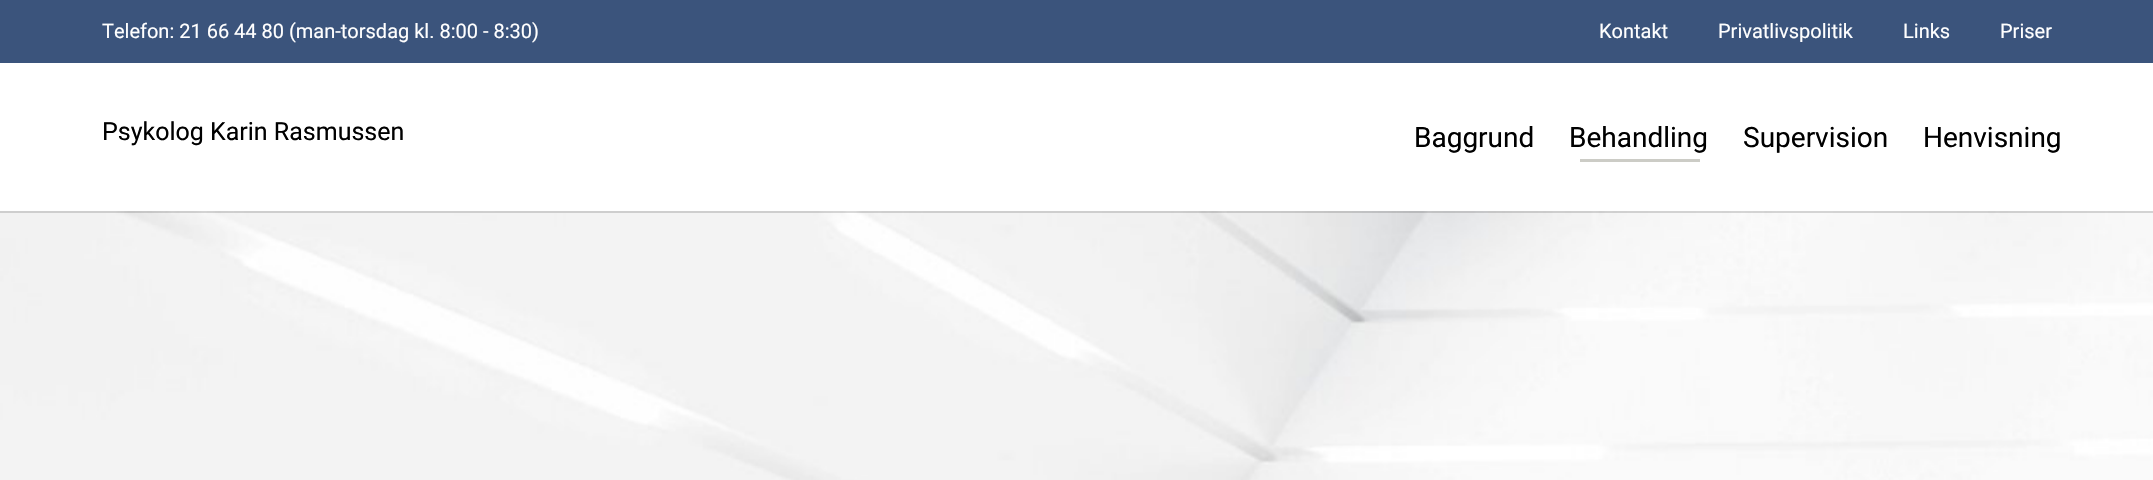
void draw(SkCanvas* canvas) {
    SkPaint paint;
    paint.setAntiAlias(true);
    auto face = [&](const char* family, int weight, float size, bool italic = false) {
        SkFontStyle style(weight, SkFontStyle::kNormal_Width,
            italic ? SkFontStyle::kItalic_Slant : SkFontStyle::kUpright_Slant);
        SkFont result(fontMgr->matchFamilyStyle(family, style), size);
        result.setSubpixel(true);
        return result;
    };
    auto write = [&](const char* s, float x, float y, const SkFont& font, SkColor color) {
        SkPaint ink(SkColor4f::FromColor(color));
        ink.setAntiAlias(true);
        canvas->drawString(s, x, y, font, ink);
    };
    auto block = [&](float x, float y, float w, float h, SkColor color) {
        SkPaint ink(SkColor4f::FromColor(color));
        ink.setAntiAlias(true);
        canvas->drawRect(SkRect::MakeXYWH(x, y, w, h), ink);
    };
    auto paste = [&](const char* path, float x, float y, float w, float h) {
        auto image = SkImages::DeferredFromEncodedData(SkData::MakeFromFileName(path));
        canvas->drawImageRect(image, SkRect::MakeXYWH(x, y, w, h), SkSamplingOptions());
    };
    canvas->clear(SK_ColorWHITE);
    block(0, 0, 2153, 63, SkColorSetRGB(59, 84, 124));
    auto kFont1 = face("Roboto", 400, 20);
    write("Telefon: 21 66 44 80 (man-torsdag kl. 8:00 - 8:30)", 102, 38, kFont1, SK_ColorWHITE);
    write("Kontakt", 1599, 38, kFont1, SK_ColorWHITE);
    write("Privatlivspolitik", 1718, 38, kFont1, SK_ColorWHITE);
    write("Links", 1903, 38, kFont1, SK_ColorWHITE);
    write("Priser", 2000, 38, kFont1, SK_ColorWHITE);
    paste("pic1.png", 0, 211, 2153, 269);
    paint.setColor(SkColorSetARGB(38, 0, 0, 0));
    canvas->drawPath(SkPathBuilder().moveTo(0, 211).lineTo(0, 213).lineTo(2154, 213).lineTo(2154, 64).lineTo(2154, 211).close().detach(), paint);
    auto kFont2 = face("Roboto", 400, 25);
    write("Psykolog Karin Rasmussen", 102, 140, kFont2, SK_ColorBLACK);
    auto kFont3 = face("Roboto", 400, 28);
    write("Baggrund", 1414, 147, kFont3, SK_ColorBLACK);
    write("Behandling", 1569, 147, kFont3, SK_ColorBLACK);
    block(1580, 159, 120, 3, SkColorSetRGB(204, 204, 198));
    write("Supervision", 1743, 147, kFont3, SK_ColorBLACK);
    write("Henvisning", 1923, 147, kFont3, SK_ColorBLACK);
}
